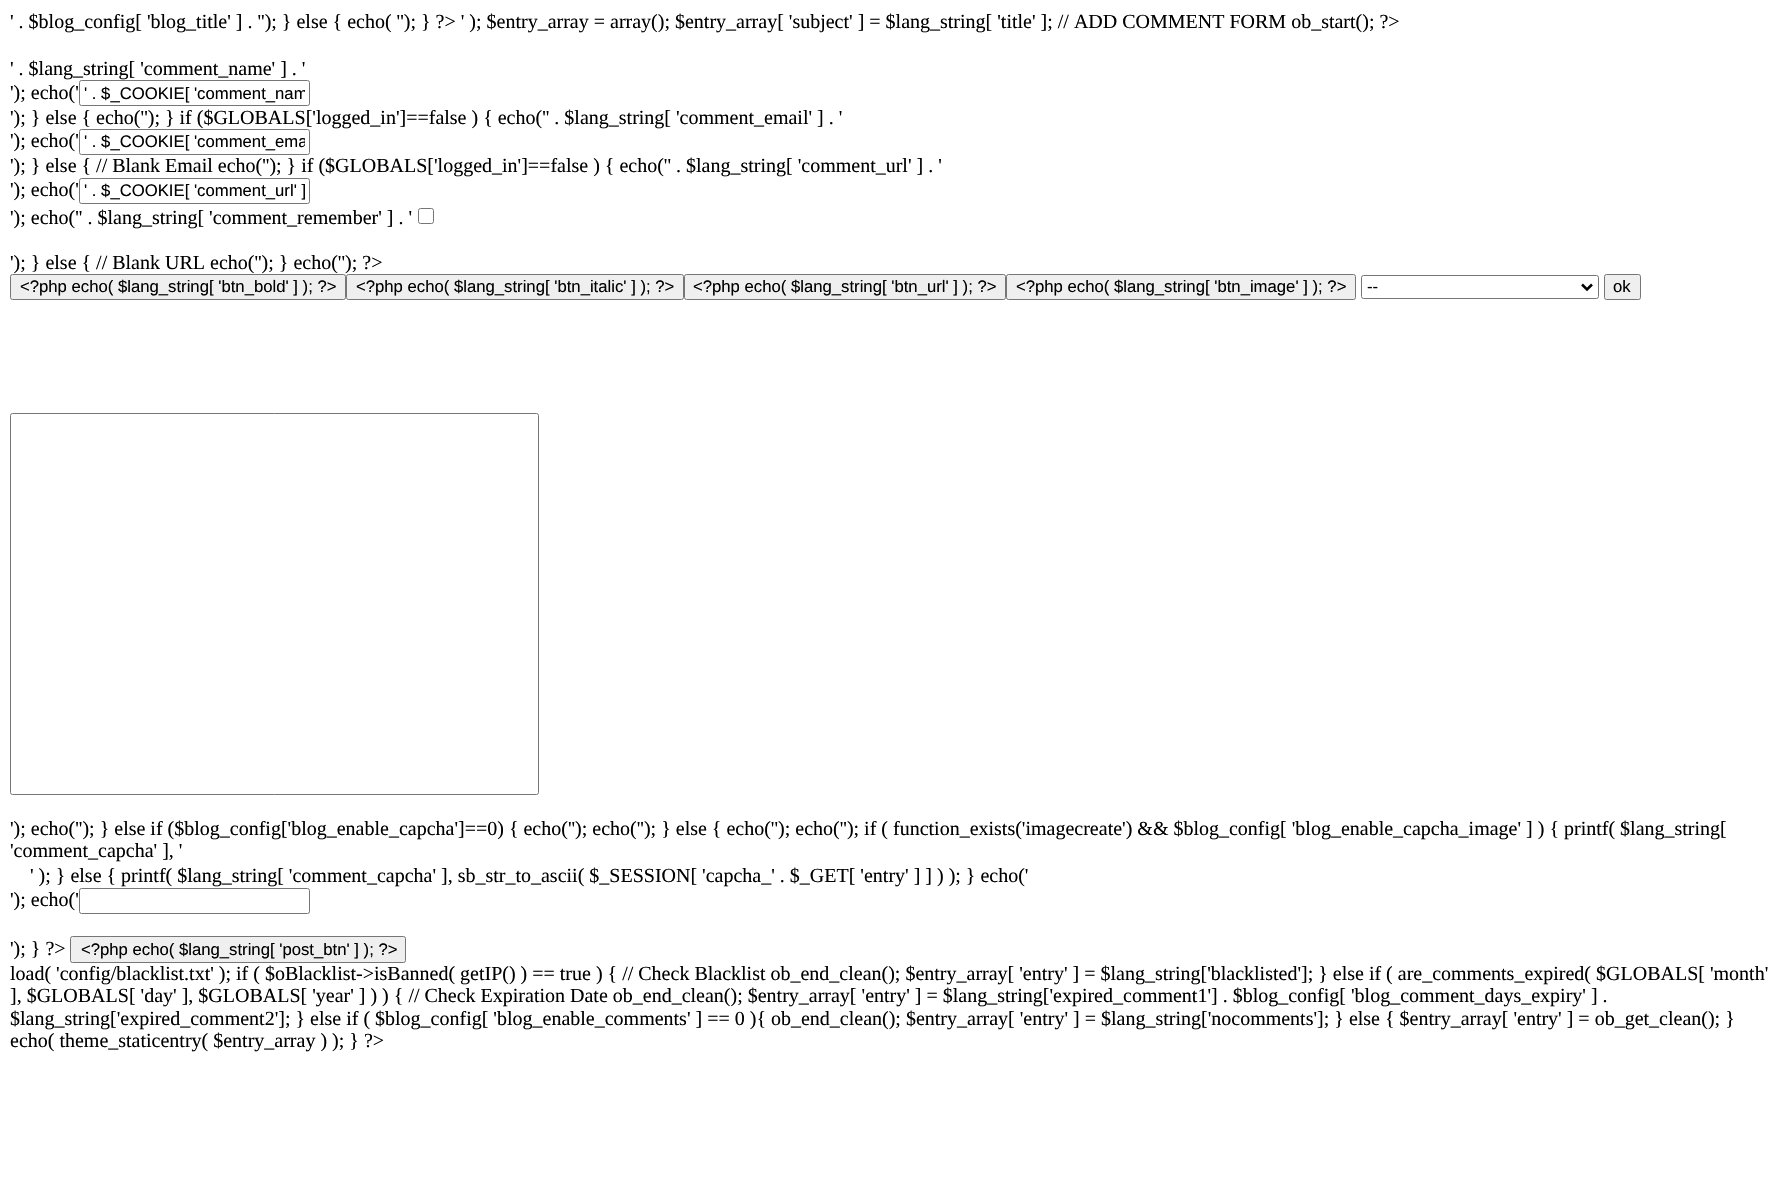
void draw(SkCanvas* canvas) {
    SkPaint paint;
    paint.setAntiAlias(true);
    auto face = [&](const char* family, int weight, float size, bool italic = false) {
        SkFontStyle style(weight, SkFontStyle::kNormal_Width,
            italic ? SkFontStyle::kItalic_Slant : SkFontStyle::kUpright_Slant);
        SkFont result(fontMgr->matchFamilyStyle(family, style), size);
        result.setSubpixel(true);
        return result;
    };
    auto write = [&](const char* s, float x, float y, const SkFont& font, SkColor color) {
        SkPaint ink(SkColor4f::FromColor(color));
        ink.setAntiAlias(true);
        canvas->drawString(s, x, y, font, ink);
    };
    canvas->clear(SK_ColorWHITE);
    auto kFont1 = face("Liberation Serif", 400, 20);
    write("' . $blog_config[ 'blog_title' ] . ''); } else { echo( ''); } ?> ' ); $entry_array = array(); $entry_array[ 'subject' ] = $lang_string[ 'title' ]; // ADD COMMENT FORM ob_start(); ?>", 10, 28, kFont1, SK_ColorBLACK);
    write("' . $lang_string[ 'comment_name' ] . '", 10, 75, kFont1, SK_ColorBLACK);
    write("'); echo('", 10, 99, kFont1, SK_ColorBLACK);
    paint.setStyle(SkPaint::kStroke_Style);
    paint.setStrokeWidth(1);
    paint.setColor(SkColorSetRGB(118, 118, 118));
    canvas->drawRoundRect(SkRect::MakeXYWH(79.5f, 80.5f, 230, 25), 2, 2, paint);
    canvas->save();
    canvas->clipRect(SkRect::MakeXYWH(84, 84, 221, 19));
    auto kFont2 = face("Liberation Sans", 400, 16.7f);
    write("' . $_COOKIE[ 'comment_nam", 84, 99, kFont2, SK_ColorBLACK);
    canvas->restore();
    write("'); } else { echo(''); } if ($GLOBALS['logged_in']==false ) { echo('' . $lang_string[ 'comment_email' ] . '", 10, 124, kFont1, SK_ColorBLACK);
    write("'); echo('", 10, 147, kFont1, SK_ColorBLACK);
    canvas->drawRoundRect(SkRect::MakeXYWH(79.5f, 129.5f, 230, 25), 2, 2, paint);
    canvas->save();
    canvas->clipRect(SkRect::MakeXYWH(84, 133, 221, 18));
    write("' . $_COOKIE[ 'comment_ema", 84, 147, kFont2, SK_ColorBLACK);
    canvas->restore();
    write("'); } else { // Blank Email echo(''); } if ($GLOBALS['logged_in']==false ) { echo('' . $lang_string[ 'comment_url' ] . '", 10, 172, kFont1, SK_ColorBLACK);
    write("'); echo('", 10, 196, kFont1, SK_ColorBLACK);
    canvas->drawRoundRect(SkRect::MakeXYWH(79.5f, 178.5f, 230, 25), 2, 2, paint);
    write("' . $_COOKIE[ 'comment_url' ]", 84, 196, kFont2, SK_ColorBLACK);
    write("'); echo('' . $lang_string[ 'comment_remember' ] . '", 10, 224, kFont1, SK_ColorBLACK);
    canvas->drawRoundRect(SkRect::MakeXYWH(418.5f, 208.5f, 15, 15), 2, 2, paint);
    write("'); } else { // Blank URL echo(''); } echo(''); ?>", 10, 269, kFont1, SK_ColorBLACK);
    paint.setStyle(SkPaint::kFill_Style);
    paint.setColor(SkColorSetRGB(239, 239, 239));
    canvas->drawRoundRect(SkRect::MakeXYWH(10.5f, 274.5f, 335, 25), 2, 2, paint);
    paint.setStyle(SkPaint::kStroke_Style);
    paint.setColor(SkColorSetRGB(118, 118, 118));
    canvas->drawRoundRect(SkRect::MakeXYWH(10.5f, 274.5f, 335, 25), 2, 2, paint);
    write("<?php echo( $lang_string[ 'btn_bold' ] ); ?>", 20, 292, kFont2, SK_ColorBLACK);
    paint.setStyle(SkPaint::kFill_Style);
    paint.setColor(SkColorSetRGB(239, 239, 239));
    canvas->drawRoundRect(SkRect::MakeXYWH(346.5f, 274.5f, 337, 25), 2, 2, paint);
    paint.setStyle(SkPaint::kStroke_Style);
    paint.setColor(SkColorSetRGB(118, 118, 118));
    canvas->drawRoundRect(SkRect::MakeXYWH(346.5f, 274.5f, 337, 25), 2, 2, paint);
    write("<?php echo( $lang_string[ 'btn_italic' ] ); ?>", 356, 292, kFont2, SK_ColorBLACK);
    paint.setStyle(SkPaint::kFill_Style);
    paint.setColor(SkColorSetRGB(239, 239, 239));
    canvas->drawRoundRect(SkRect::MakeXYWH(684.5f, 274.5f, 321, 25), 2, 2, paint);
    paint.setStyle(SkPaint::kStroke_Style);
    paint.setColor(SkColorSetRGB(118, 118, 118));
    canvas->drawRoundRect(SkRect::MakeXYWH(684.5f, 274.5f, 321, 25), 2, 2, paint);
    write("<?php echo( $lang_string[ 'btn_url' ] ); ?>", 693, 292, kFont2, SK_ColorBLACK);
    paint.setStyle(SkPaint::kFill_Style);
    paint.setColor(SkColorSetRGB(239, 239, 239));
    canvas->drawRoundRect(SkRect::MakeXYWH(1006.5f, 274.5f, 349, 25), 2, 2, paint);
    paint.setStyle(SkPaint::kStroke_Style);
    paint.setColor(SkColorSetRGB(118, 118, 118));
    canvas->drawRoundRect(SkRect::MakeXYWH(1006.5f, 274.5f, 349, 25), 2, 2, paint);
    write("<?php echo( $lang_string[ 'btn_image' ] ); ?>", 1016, 292, kFont2, SK_ColorBLACK);
    canvas->drawRoundRect(SkRect::MakeXYWH(1361.5f, 275.5f, 237, 23), 2, 2, paint);
    paint.setStrokeWidth(2.5f);
    paint.setColor(SK_ColorBLACK);
    canvas->drawPath(SkPathBuilder().moveTo(1582, 284.5f).lineTo(1587, 289.5f).lineTo(1592, 284.5f).detach(), paint);
    write("--", 1367, 292, kFont2, SK_ColorBLACK);
    paint.setStyle(SkPaint::kFill_Style);
    paint.setColor(SkColorSetRGB(239, 239, 239));
    canvas->drawRoundRect(SkRect::MakeXYWH(1604.5f, 274.5f, 36, 25), 2, 2, paint);
    paint.setStyle(SkPaint::kStroke_Style);
    paint.setStrokeWidth(1);
    paint.setColor(SkColorSetRGB(118, 118, 118));
    canvas->drawRoundRect(SkRect::MakeXYWH(1604.5f, 274.5f, 36, 25), 2, 2, paint);
    write("ok", 1613, 292, kFont2, SK_ColorBLACK);
    canvas->drawRoundRect(SkRect::MakeXYWH(10.5f, 413.5f, 528, 381), 2, 2, paint);
    write("'); echo(''); } else if ($blog_config['blog_enable_capcha']==0) { echo(''); echo(''); } else { echo(''); echo(''); if ( function_exists('imagecreate') && $blog_config[ 'blog_enable_capcha_image' ] ) { printf( $lang_string[", 10, 835, kFont1, SK_ColorBLACK);
    write("'comment_capcha' ], '", 10, 857, kFont1, SK_ColorBLACK);
    write("' ); } else { printf( $lang_string[ 'comment_capcha' ], sb_str_to_ascii( $_SESSION[ 'capcha_' . $_GET[ 'entry' ] ] ) ); } echo('", 30, 882, kFont1, SK_ColorBLACK);
    write("'); echo('", 10, 906, kFont1, SK_ColorBLACK);
    canvas->drawRoundRect(SkRect::MakeXYWH(79.5f, 888.5f, 230, 25), 2, 2, paint);
    write("'); } ?>", 10, 955, kFont1, SK_ColorBLACK);
    paint.setStyle(SkPaint::kFill_Style);
    paint.setColor(SkColorSetRGB(239, 239, 239));
    canvas->drawRoundRect(SkRect::MakeXYWH(70.5f, 936.5f, 335, 26), 2, 2, paint);
    paint.setStyle(SkPaint::kStroke_Style);
    paint.setColor(SkColorSetRGB(118, 118, 118));
    canvas->drawRoundRect(SkRect::MakeXYWH(70.5f, 936.5f, 335, 26), 2, 2, paint);
    write("<?php echo( $lang_string[ 'post_btn' ] ); ?>", 81, 955, kFont2, SK_ColorBLACK);
    write("load( 'config/blacklist.txt' ); if ( $oBlacklist->isBanned( getIP() ) == true ) { // Check Blacklist ob_end_clean(); $entry_array[ 'entry' ] = $lang_string['blacklisted']; } else if ( are_comments_expired( $GLOBALS[ 'month'", 10, 980, kFont1, SK_ColorBLACK);
    write("], $GLOBALS[ 'day' ], $GLOBALS[ 'year' ] ) ) { // Check Expiration Date ob_end_clean(); $entry_array[ 'entry' ] = $lang_string['expired_comment1'] . $blog_config[ 'blog_comment_days_expiry' ] .", 10, 1002, kFont1, SK_ColorBLACK);
    write("$lang_string['expired_comment2']; } else if ( $blog_config[ 'blog_enable_comments' ] == 0 ){ ob_end_clean(); $entry_array[ 'entry' ] = $lang_string['nocomments']; } else { $entry_array[ 'entry' ] = ob_get_clean(); }", 10, 1025, kFont1, SK_ColorBLACK);
    write("echo( theme_staticentry( $entry_array ) ); } ?>", 10, 1047, kFont1, SK_ColorBLACK);
}
